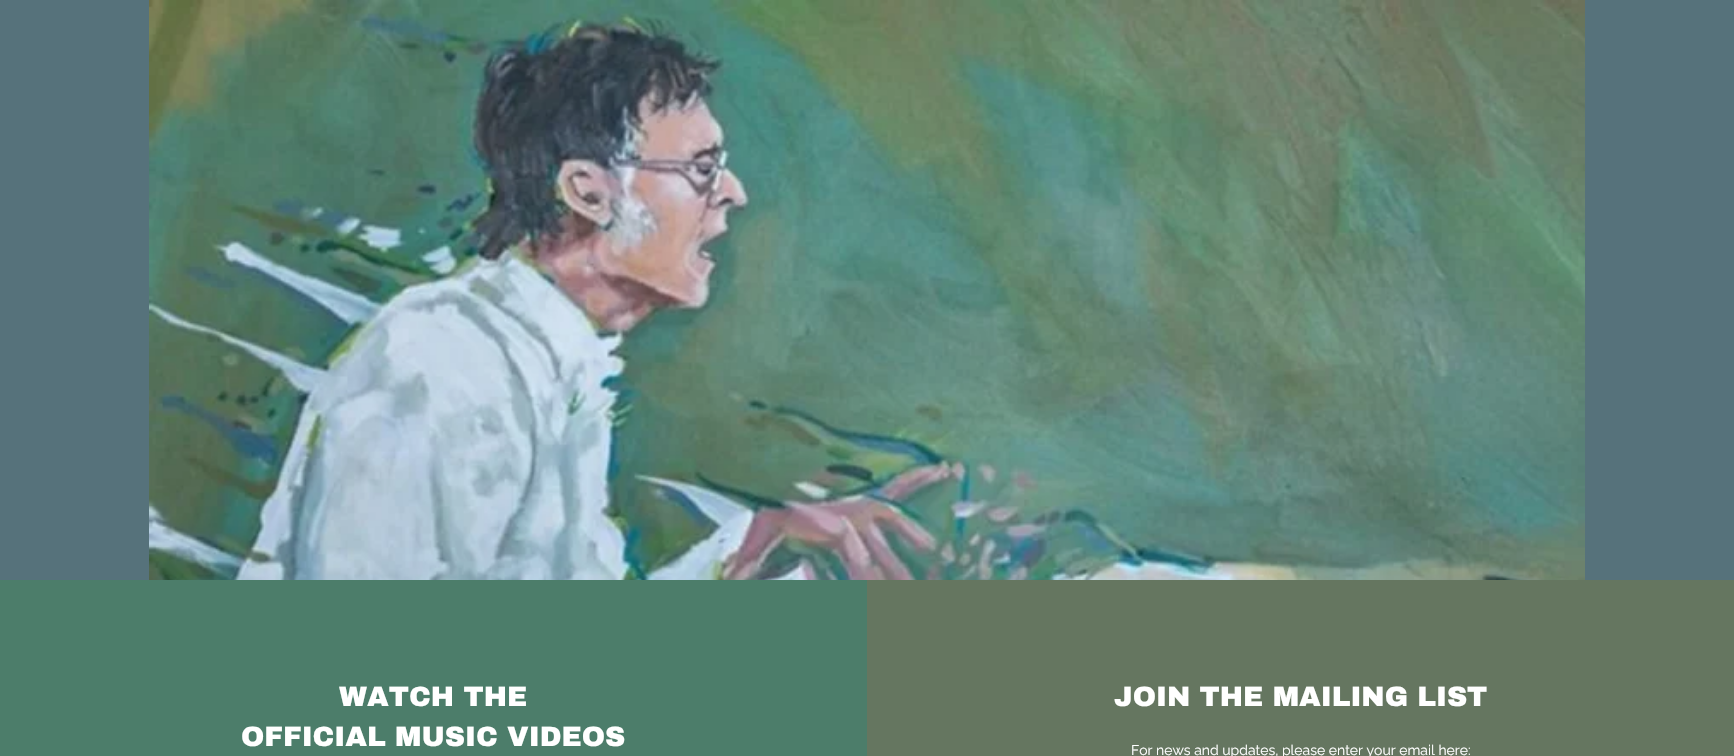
void draw(SkCanvas* canvas) {
    SkPaint paint;
    paint.setAntiAlias(true);
    auto face = [&](const char* family, int weight, float size, bool italic = false) {
        SkFontStyle style(weight, SkFontStyle::kNormal_Width,
            italic ? SkFontStyle::kItalic_Slant : SkFontStyle::kUpright_Slant);
        SkFont result(fontMgr->matchFamilyStyle(family, style), size);
        result.setSubpixel(true);
        return result;
    };
    auto write = [&](const char* s, float x, float y, const SkFont& font, SkColor color) {
        SkPaint ink(SkColor4f::FromColor(color));
        ink.setAntiAlias(true);
        canvas->drawString(s, x, y, font, ink);
    };
    auto block = [&](float x, float y, float w, float h, SkColor color) {
        SkPaint ink(SkColor4f::FromColor(color));
        ink.setAntiAlias(true);
        canvas->drawRect(SkRect::MakeXYWH(x, y, w, h), ink);
    };
    auto paste = [&](const char* path, float x, float y, float w, float h) {
        auto image = SkImages::DeferredFromEncodedData(SkData::MakeFromFileName(path));
        canvas->drawImageRect(image, SkRect::MakeXYWH(x, y, w, h), SkSamplingOptions());
    };
    canvas->clear(SkColorSetRGB(86, 114, 123));
    paste("pic1.png", 149, 0, 1436, 580);
    block(0, 580, 867, 176, SkColorSetRGB(76, 125, 106));
    auto kFont1 = face("Archivo Black", 900, 28);
    write("WATCH THE", 339, 706, kFont1, SK_ColorWHITE);
    write("OFFICIAL MUSIC VIDEOS", 241, 746, kFont1, SK_ColorWHITE);
    block(867, 580, 867, 176, SkColorSetRGB(101, 118, 96));
    write("JOIN THE MAILING LIST", 1114, 706, kFont1, SK_ColorWHITE);
    auto kFont2 = face("Raleway", 400, 14);
    write("For news and updates, please enter your email here:", 1131, 755, kFont2, SK_ColorWHITE);
}
